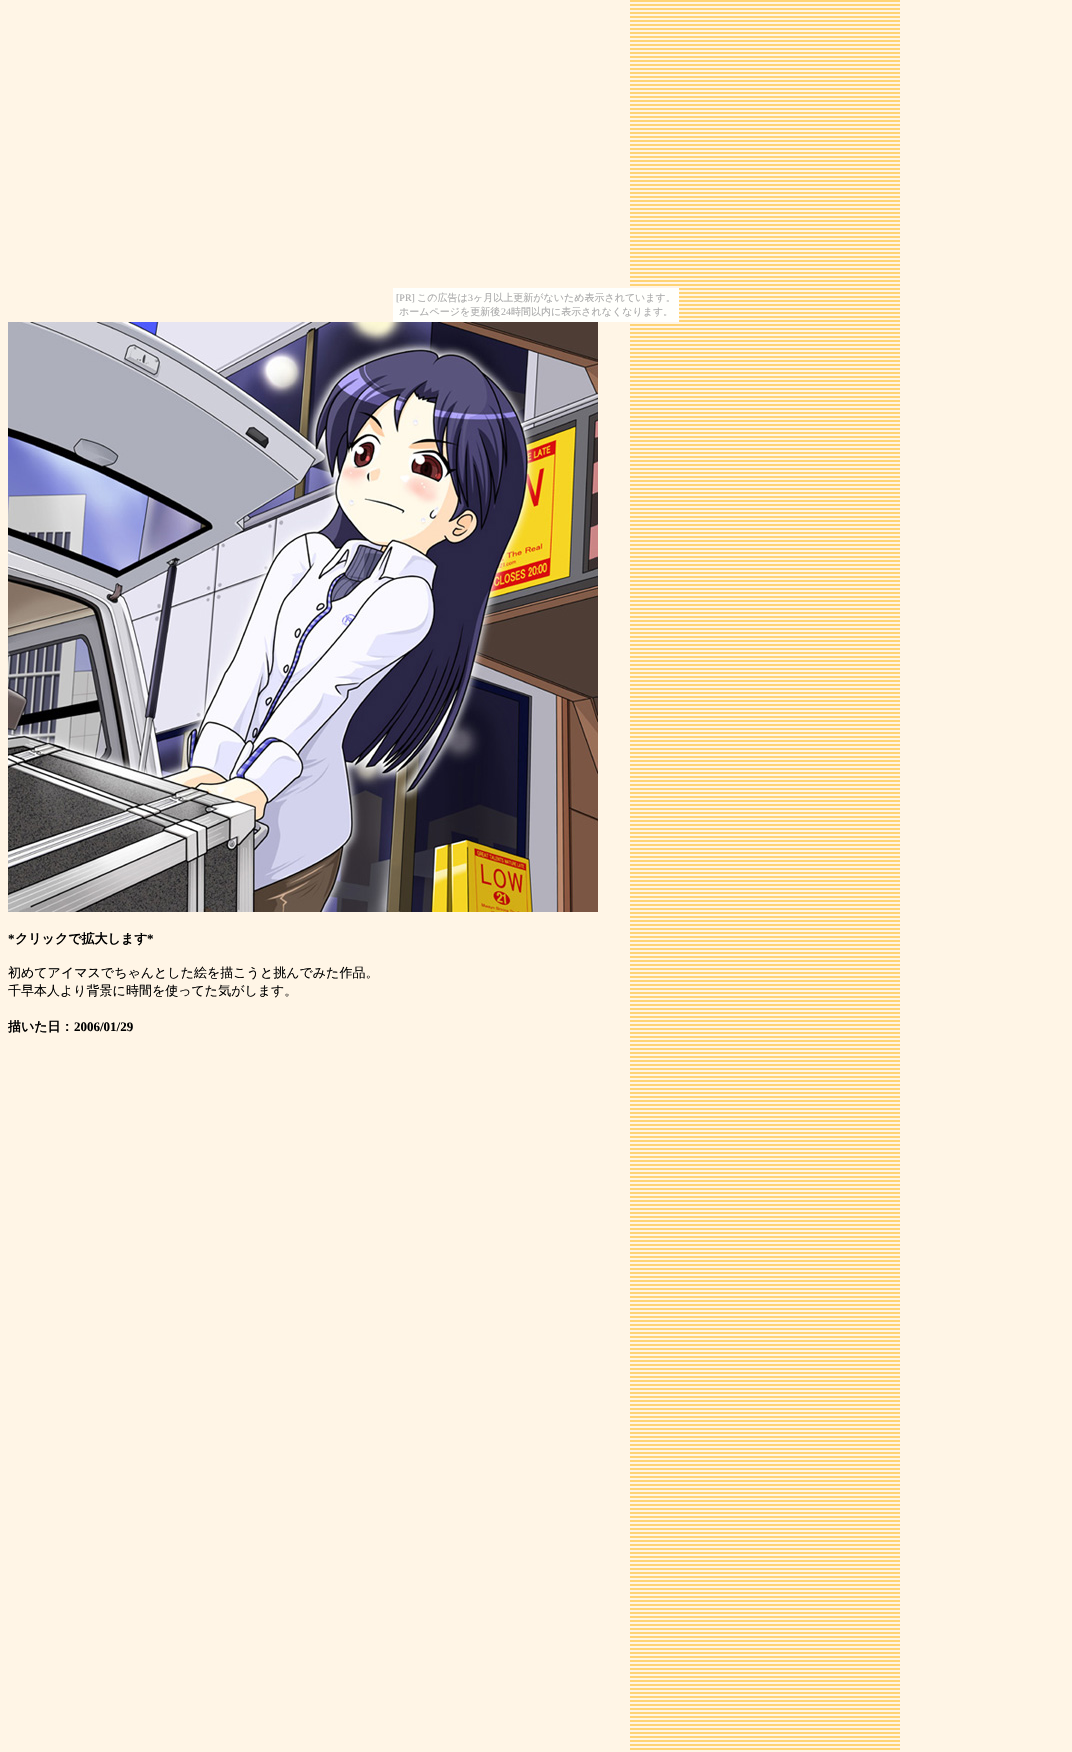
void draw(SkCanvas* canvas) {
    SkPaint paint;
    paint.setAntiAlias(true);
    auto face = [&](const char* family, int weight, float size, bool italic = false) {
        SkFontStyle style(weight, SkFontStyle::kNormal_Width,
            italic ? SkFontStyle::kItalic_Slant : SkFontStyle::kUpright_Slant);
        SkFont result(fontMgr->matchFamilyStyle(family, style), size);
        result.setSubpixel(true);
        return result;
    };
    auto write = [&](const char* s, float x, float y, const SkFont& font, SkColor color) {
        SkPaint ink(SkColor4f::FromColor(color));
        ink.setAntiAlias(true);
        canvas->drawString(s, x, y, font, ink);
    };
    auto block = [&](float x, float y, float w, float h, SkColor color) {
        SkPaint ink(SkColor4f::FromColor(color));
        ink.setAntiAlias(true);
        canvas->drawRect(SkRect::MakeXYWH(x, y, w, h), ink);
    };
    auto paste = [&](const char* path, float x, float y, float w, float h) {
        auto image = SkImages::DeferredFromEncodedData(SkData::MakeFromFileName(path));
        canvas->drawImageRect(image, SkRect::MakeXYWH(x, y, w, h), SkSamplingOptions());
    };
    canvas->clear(SkColorSetRGB(255, 245, 230));
    paste("pic1.png", 630, 0, 270, 1750);
    block(393, 288, 286, 34, SkColorSetRGB(255, 255, 252));
    auto kFont1 = face("Liberation Serif", 400, 10);
    write("[PR]", 396, 301, kFont1, SkColorSetRGB(170, 170, 170));
    auto kFont2 = face("WenQuanYi Zen Hei", 500, 10);
    write("この広告は", 417, 301, kFont2, SkColorSetRGB(170, 170, 170));
    write("3", 468, 301, kFont1, SkColorSetRGB(170, 170, 170));
    write("ヶ月以上更新がないため表示されています。", 473, 301, kFont2, SkColorSetRGB(170, 170, 170));
    write("ホームページを更新後", 399, 315, kFont2, SkColorSetRGB(170, 170, 170));
    write("24", 501, 315, kFont1, SkColorSetRGB(170, 170, 170));
    write("時間以内に表示されなくなります。", 511, 315, kFont2, SkColorSetRGB(170, 170, 170));
    paste("pic2.png", 8, 322, 590, 590);
    auto kFont3 = face("Liberation Serif", 700, 13);
    write("*", 8, 943, kFont3, SK_ColorBLACK);
    auto kFont4 = face("WenQuanYi Zen Hei", 700, 13);
    write("クリックで拡大します", 15, 943, kFont4, SK_ColorBLACK);
    write("*", 147, 943, kFont3, SK_ColorBLACK);
    auto kFont5 = face("WenQuanYi Zen Hei", 500, 13);
    write("初めてアイマスでちゃんとした絵を描こうと挑んでみた作品。", 8, 977, kFont5, SK_ColorBLACK);
    write("千早本人より背景に時間を使ってた気がします。", 8, 995, kFont5, SK_ColorBLACK);
    write("描いた日：", 8, 1031, kFont4, SK_ColorBLACK);
    write("2006/01/29", 74, 1031, kFont3, SK_ColorBLACK);
}
